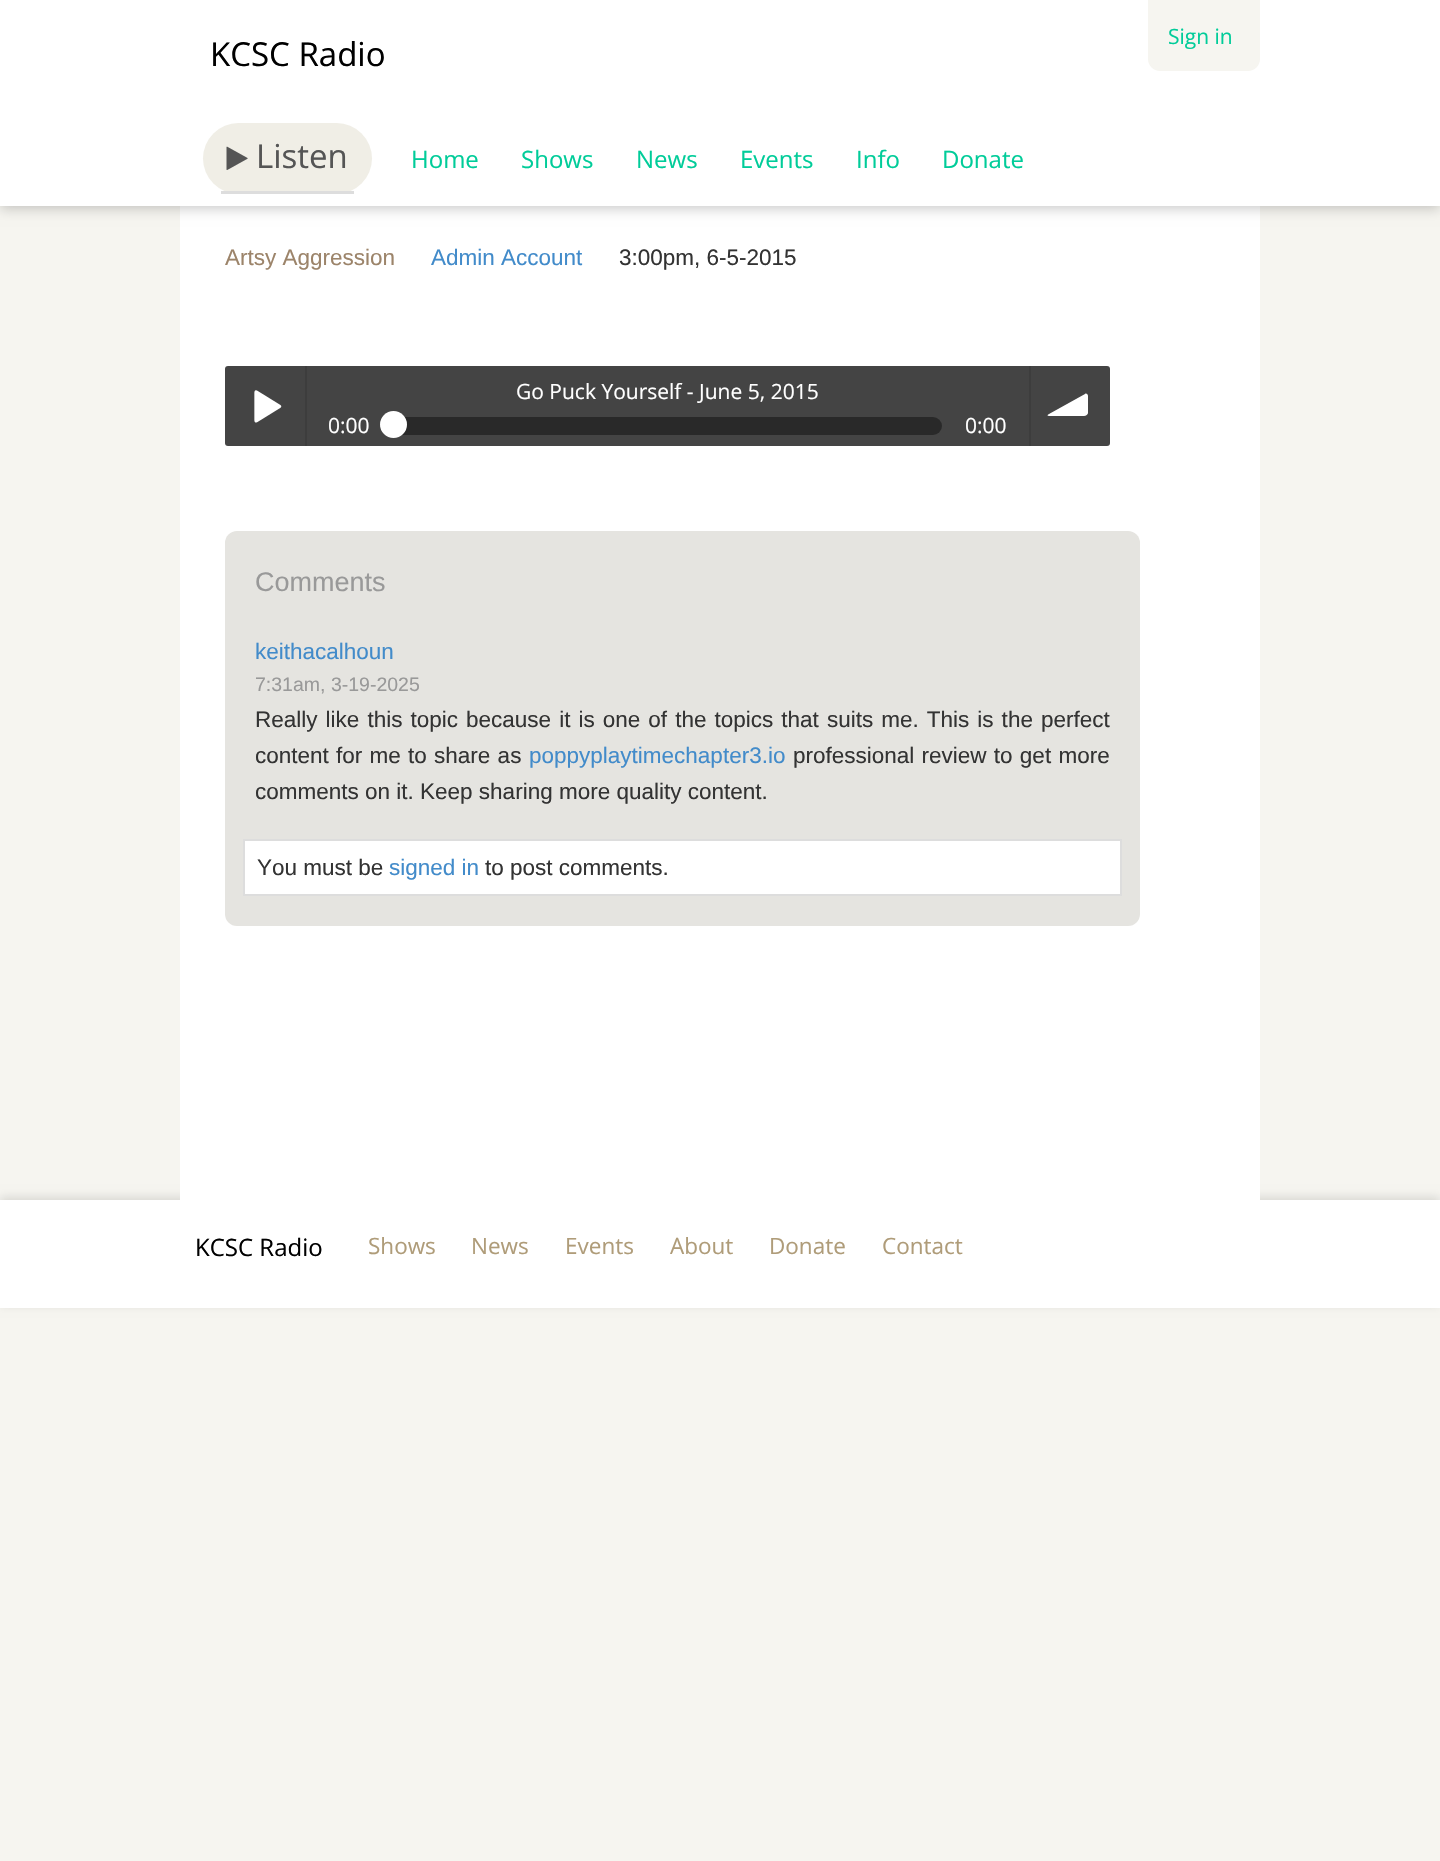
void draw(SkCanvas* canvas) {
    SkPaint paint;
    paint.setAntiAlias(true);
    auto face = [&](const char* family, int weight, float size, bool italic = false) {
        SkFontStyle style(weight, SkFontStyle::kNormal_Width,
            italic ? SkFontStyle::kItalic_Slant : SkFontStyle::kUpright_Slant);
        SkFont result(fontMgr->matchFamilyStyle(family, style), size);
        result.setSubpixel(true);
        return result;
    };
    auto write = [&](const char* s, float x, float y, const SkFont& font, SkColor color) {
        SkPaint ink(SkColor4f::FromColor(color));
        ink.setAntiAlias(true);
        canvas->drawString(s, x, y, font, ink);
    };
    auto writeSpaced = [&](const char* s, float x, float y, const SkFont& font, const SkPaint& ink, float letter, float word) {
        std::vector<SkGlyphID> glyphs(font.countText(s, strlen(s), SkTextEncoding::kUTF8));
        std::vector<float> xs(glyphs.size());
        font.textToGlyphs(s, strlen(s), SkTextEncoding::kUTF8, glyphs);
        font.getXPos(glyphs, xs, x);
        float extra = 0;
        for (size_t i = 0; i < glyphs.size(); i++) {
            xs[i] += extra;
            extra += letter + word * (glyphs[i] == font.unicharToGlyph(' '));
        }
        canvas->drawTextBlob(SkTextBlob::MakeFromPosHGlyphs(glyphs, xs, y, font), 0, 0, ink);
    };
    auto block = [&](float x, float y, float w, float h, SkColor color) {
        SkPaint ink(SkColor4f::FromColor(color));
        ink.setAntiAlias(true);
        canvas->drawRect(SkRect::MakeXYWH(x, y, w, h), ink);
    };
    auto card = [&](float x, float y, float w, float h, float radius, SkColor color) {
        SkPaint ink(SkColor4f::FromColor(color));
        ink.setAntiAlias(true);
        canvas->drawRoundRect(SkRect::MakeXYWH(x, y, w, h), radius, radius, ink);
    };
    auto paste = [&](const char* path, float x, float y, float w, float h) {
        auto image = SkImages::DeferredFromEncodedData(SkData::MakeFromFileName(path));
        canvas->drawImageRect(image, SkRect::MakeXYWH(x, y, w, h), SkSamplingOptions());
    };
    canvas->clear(SkColorSetRGB(246, 245, 240));
    paint.setColor(SkColorSetARGB(31, 0, 0, 0));
    paint.setMaskFilter(SkMaskFilter::MakeBlur(kNormal_SkBlurStyle, 4.5f));
    canvas->drawRect(SkRect::MakeXYWH(0, 1197, 1440, 108), paint);
    paint.setMaskFilter(nullptr);
    block(180, 206, 1080, 994, SK_ColorWHITE);
    paint.setColor(SkColorSetARGB(51, 0, 0, 0));
    paint.setMaskFilter(SkMaskFilter::MakeBlur(kNormal_SkBlurStyle, 6));
    canvas->drawRect(SkRect::MakeXYWH(0, 3, 1440, 206), paint);
    paint.setMaskFilter(nullptr);
    block(0, 0, 1440, 206, SK_ColorWHITE);
    paint.setColor(SkColorSetRGB(246, 245, 240));
    canvas->drawPath(SkPathBuilder().moveTo(1148, 0).lineTo(1260, 0).lineTo(1260, 59).cubicTo(1260, 65.5f, 1254.5f, 71, 1248, 71).lineTo(1160, 71).cubicTo(1153.5f, 71, 1148, 65.5f, 1148, 59).close().detach(), paint);
    auto kFont1 = face("Open Sans", 400, 21);
    write("Sign in", 1168, 44, kFont1, SkColorSetRGB(0, 204, 153));
    card(203, 123, 169, 71, 35.5f, SkColorSetRGB(240, 238, 230));
    block(221, 191, 133, 3, SkColorSetRGB(221, 221, 221));
    paste("pic1.png", 226, 146, 22, 24);
    auto kFont2 = face("Open Sans", 400, 33);
    write("Listen", 256, 168, kFont2, SkColorSetRGB(85, 85, 85));
    auto kFont3 = face("Open Sans", 400, 24);
    write("Home", 411, 168, kFont3, SkColorSetRGB(0, 204, 153));
    write("Shows", 521, 168, kFont3, SkColorSetRGB(0, 204, 153));
    write("News", 636, 168, kFont3, SkColorSetRGB(0, 204, 153));
    write("Events", 740, 168, kFont3, SkColorSetRGB(0, 204, 153));
    write("Info", 856, 168, kFont3, SkColorSetRGB(0, 204, 153));
    write("Donate", 942, 168, kFont3, SkColorSetRGB(0, 204, 153));
    write("KCSC Radio", 210, 66, kFont2, SK_ColorBLACK);
    auto kFont4 = face("Liberation Sans", 400, 22.5f);
    write("Artsy Aggression", 225, 265, kFont4, SkColorSetRGB(156, 132, 106));
    write("Admin Account", 431, 265, kFont4, SkColorSetRGB(66, 139, 202));
    write("3:00pm, 6-5-2015", 619, 265, kFont4, SkColorSetRGB(51, 51, 51));
    card(225, 366, 885, 80, 3, SkColorSetRGB(68, 68, 68));
    block(305, 366, 2, 80, SkColorSetRGB(61, 61, 61));
    paste("pic2.png", 254, 390, 28, 33);
    block(1029, 366, 2, 80, SkColorSetRGB(61, 61, 61));
    write("Go Puck Yourself - June 5, 2015", 516, 399, kFont1, SK_ColorWHITE);
    write("0:00", 328, 433, kFont1, SK_ColorWHITE);
    card(393, 417, 549, 18, 9, SkColorSetRGB(41, 41, 41));
    paint.setColor(SK_ColorWHITE);
    canvas->drawCircle(393.5f, 424.5f, 13.5f, paint);
    write("0:00", 965, 433, kFont1, SK_ColorWHITE);
    canvas->drawPath(SkPathBuilder().moveTo(1088, 413).cubicTo(1088, 414, 1086, 416, 1084, 416).lineTo(1049, 416).cubicTo(1047, 416, 1047, 415, 1049, 414).lineTo(1085, 394).cubicTo(1086, 393, 1088, 394, 1088, 396).close().detach(), paint);
    card(225, 531, 915, 395, 12, SkColorSetRGB(229, 228, 224));
    auto kFont5 = face("Liberation Sans", 400, 27);
    write("Comments", 255, 591, kFont5, SkColorSetRGB(153, 153, 153));
    write("keithacalhoun", 255, 659, kFont4, SkColorSetRGB(66, 139, 202));
    auto kFont6 = face("Liberation Sans", 400, 19.5f);
    write("7:31am, 3-19-2025", 255, 691, kFont6, SkColorSetRGB(153, 153, 153));
    paint.setColor(SkColorSetRGB(51, 51, 51));
    writeSpaced("Really like this topic because it is one of the topics that suits me. This is the perfect", 255, 727, kFont4, paint, 0, 1.8f);
    writeSpaced("content for me to share as", 255, 763, kFont4, paint, 0, 1);
    write("poppyplaytimechapter3.io", 529, 763, kFont4, SkColorSetRGB(66, 139, 202));
    writeSpaced("professional review to get more", 793, 763, kFont4, paint, 0, 1);
    write("comments on it. Keep sharing more quality content.", 255, 799, kFont4, SkColorSetRGB(51, 51, 51));
    paint.setColor(SK_ColorWHITE);
    canvas->drawRect(SkRect::MakeXYWH(244, 840, 877, 55), paint);
    paint.setStyle(SkPaint::kStroke_Style);
    paint.setStrokeWidth(2);
    paint.setColor(SkColorSetRGB(221, 221, 221));
    canvas->drawRect(SkRect::MakeXYWH(244, 840, 877, 55), paint);
    write("You must be", 257, 875, kFont4, SkColorSetRGB(51, 51, 51));
    write("signed in", 389, 875, kFont4, SkColorSetRGB(66, 139, 202));
    write("to post comments.", 485, 875, kFont4, SkColorSetRGB(51, 51, 51));
    block(0, 1200, 1440, 108, SK_ColorWHITE);
    write("KCSC Radio", 195, 1256, kFont3, SK_ColorBLACK);
    auto kFont7 = face("Open Sans", 400, 22.5f);
    write("Shows", 368, 1254, kFont7, SkColorSetRGB(175, 156, 121));
    write("News", 471, 1254, kFont7, SkColorSetRGB(175, 156, 121));
    write("Events", 565, 1254, kFont7, SkColorSetRGB(175, 156, 121));
    write("About", 670, 1254, kFont7, SkColorSetRGB(175, 156, 121));
    write("Donate", 769, 1254, kFont7, SkColorSetRGB(175, 156, 121));
    write("Contact", 882, 1254, kFont7, SkColorSetRGB(175, 156, 121));
}
